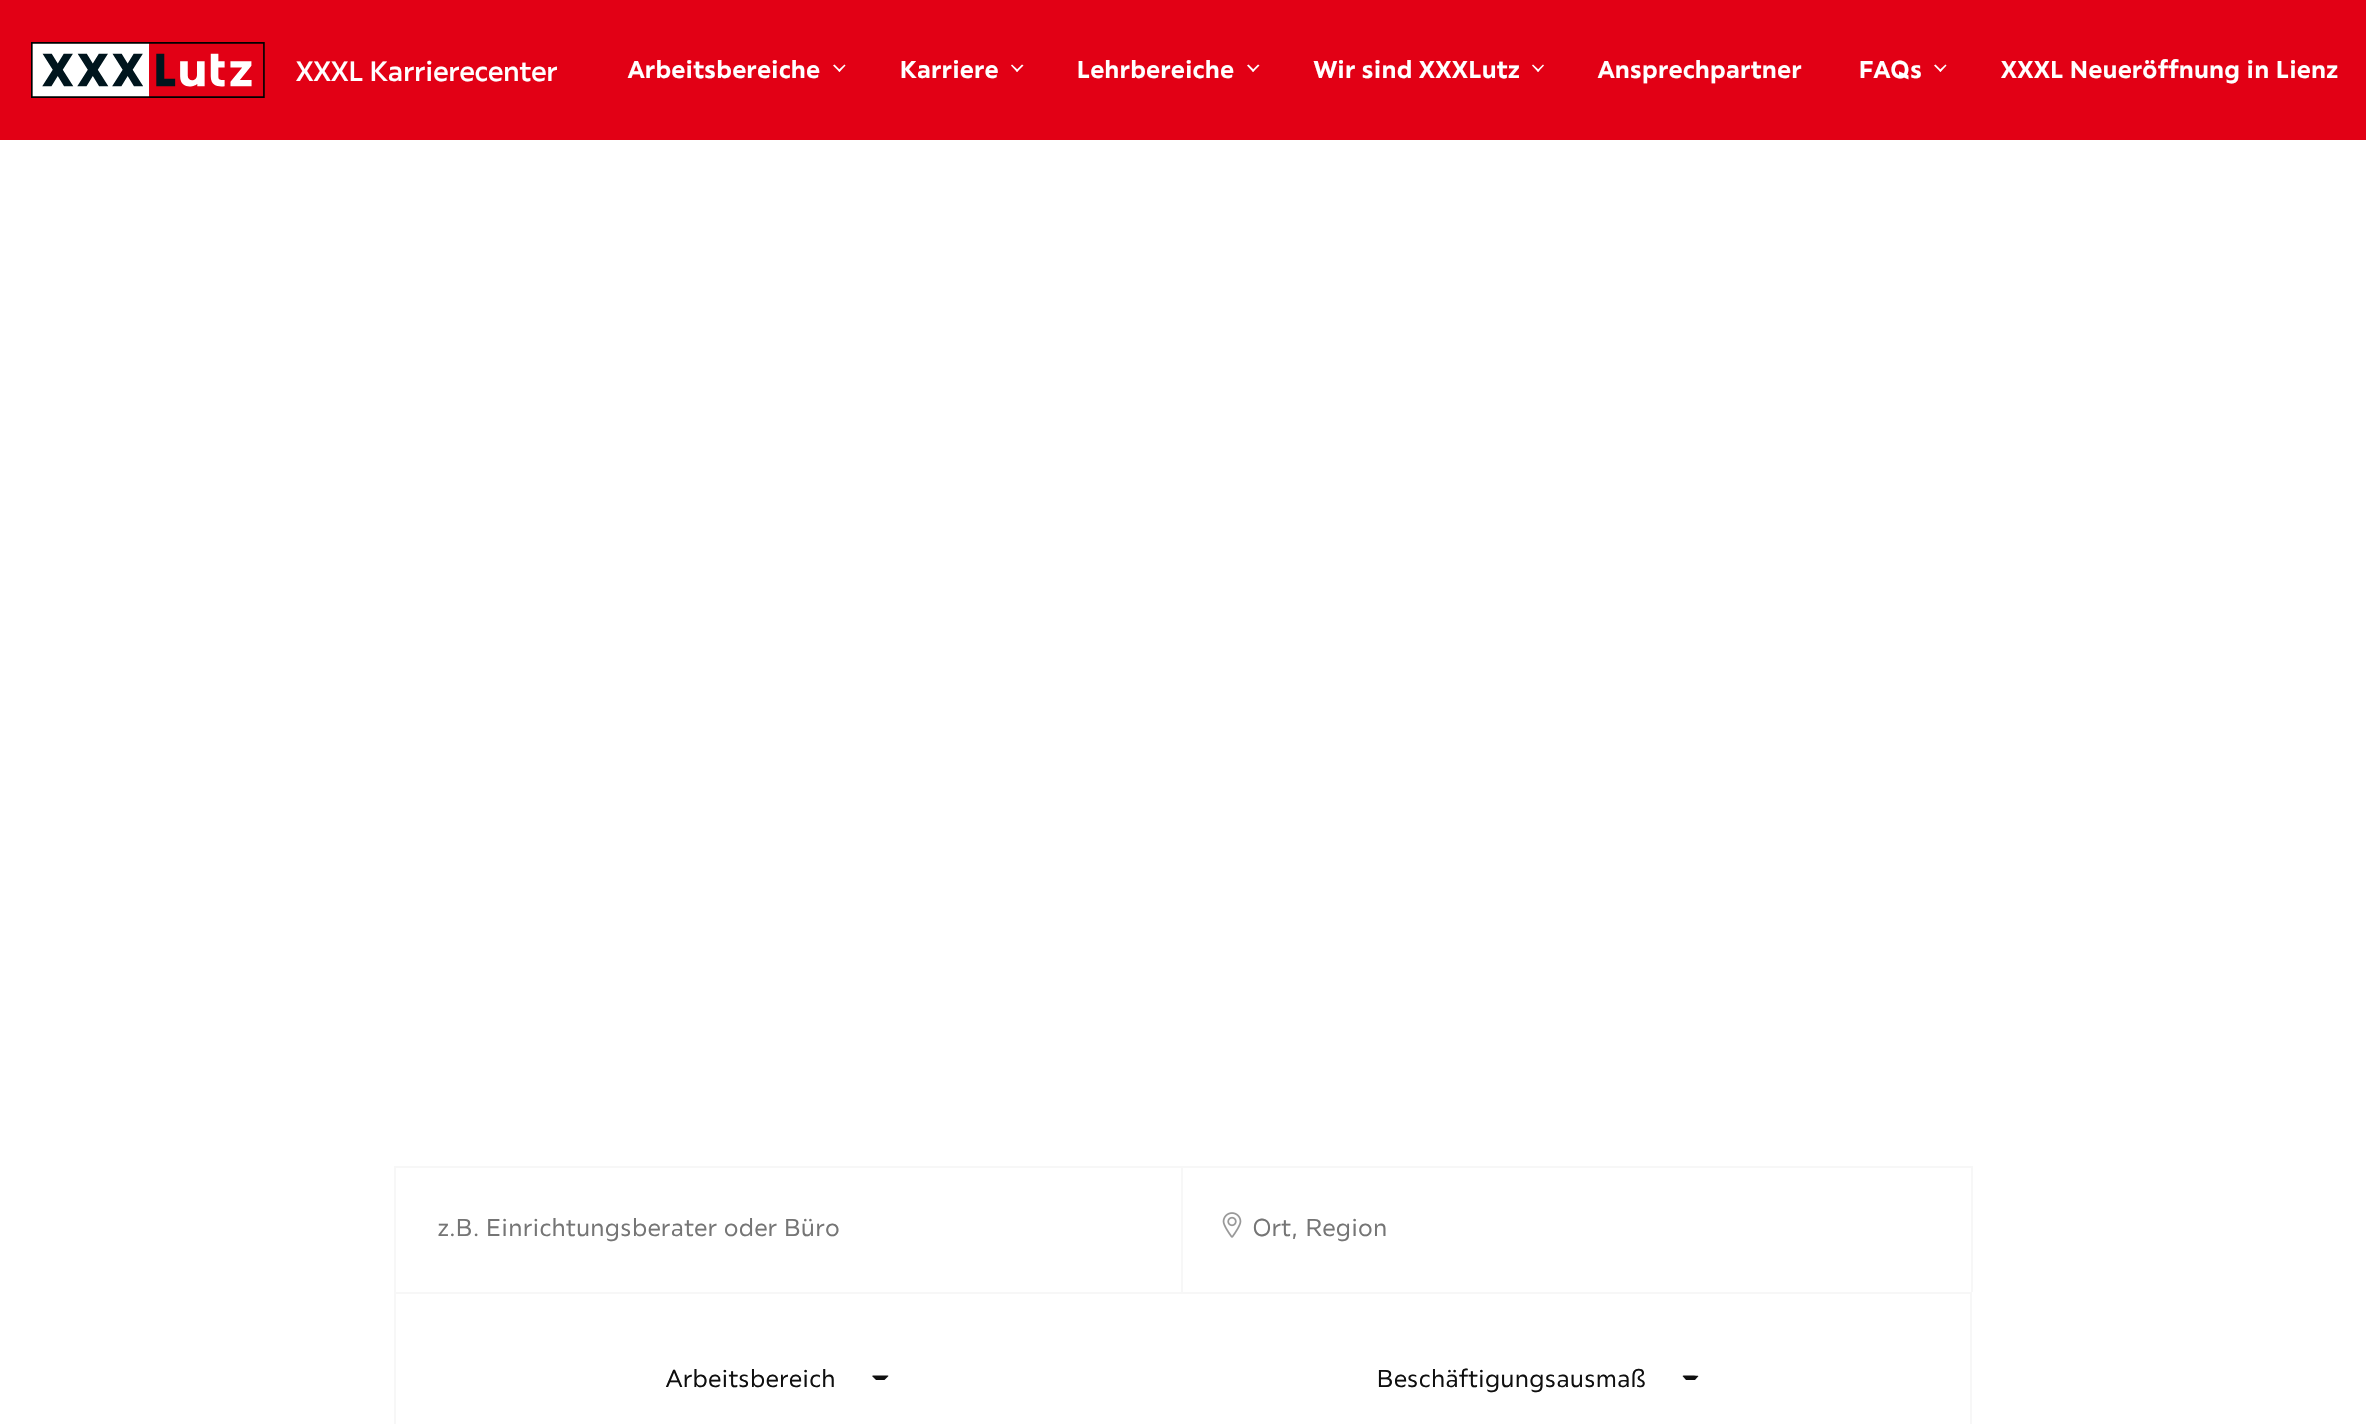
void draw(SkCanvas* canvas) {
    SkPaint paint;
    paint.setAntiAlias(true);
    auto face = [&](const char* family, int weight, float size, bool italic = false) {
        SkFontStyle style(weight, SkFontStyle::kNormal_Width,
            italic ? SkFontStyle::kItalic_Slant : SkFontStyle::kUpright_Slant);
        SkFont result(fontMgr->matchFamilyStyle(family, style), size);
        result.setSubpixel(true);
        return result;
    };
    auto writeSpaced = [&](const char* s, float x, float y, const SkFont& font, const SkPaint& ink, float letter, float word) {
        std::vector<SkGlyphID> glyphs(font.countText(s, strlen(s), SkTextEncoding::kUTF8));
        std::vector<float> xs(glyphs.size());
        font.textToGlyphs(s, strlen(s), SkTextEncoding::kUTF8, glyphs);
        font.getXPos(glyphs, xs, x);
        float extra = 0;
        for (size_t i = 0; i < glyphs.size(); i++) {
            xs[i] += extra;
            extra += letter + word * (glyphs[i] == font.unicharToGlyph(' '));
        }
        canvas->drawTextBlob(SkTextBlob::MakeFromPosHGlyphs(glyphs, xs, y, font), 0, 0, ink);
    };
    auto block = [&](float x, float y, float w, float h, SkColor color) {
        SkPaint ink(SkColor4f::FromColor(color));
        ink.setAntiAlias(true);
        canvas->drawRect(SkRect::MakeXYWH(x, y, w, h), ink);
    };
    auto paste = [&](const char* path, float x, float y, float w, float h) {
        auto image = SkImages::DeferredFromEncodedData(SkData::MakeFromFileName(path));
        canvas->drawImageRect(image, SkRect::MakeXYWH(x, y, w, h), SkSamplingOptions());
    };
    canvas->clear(SK_ColorWHITE);
    block(0, 0, 2366, 140, SkColorSetRGB(226, 0, 21));
    paste("pic1.png", 31, 42, 234, 56);
    auto kFont1 = face("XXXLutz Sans", 500, 28);
    paint.setColor(SK_ColorWHITE);
    writeSpaced("XXXL Karrierecenter", 296, 81, kFont1, paint, 0.2f, 0);
    auto kFont2 = face("XXXLutz Sans", 700, 24.5f);
    writeSpaced("Arbeitsbereiche", 628, 78, kFont2, paint, 0.7f, 0);
    canvas->drawPath(SkPathBuilder().moveTo(844.5f, 64.5f).lineTo(845.5f, 65.5f).lineTo(839.5f, 72).lineTo(838, 70.5f).close().detach(), paint);
    canvas->drawPath(SkPathBuilder().moveTo(834.5f, 64.5f).lineTo(840.5f, 70.5f).lineTo(839.5f, 72).lineTo(833, 65.5f).close().detach(), paint);
    writeSpaced("Karriere", 900, 78, kFont2, paint, 0.7f, 0);
    canvas->drawPath(SkPathBuilder().moveTo(1022, 64.5f).lineTo(1023.5f, 65.5f).lineTo(1017, 72).lineTo(1016, 70.5f).close().detach(), paint);
    canvas->drawPath(SkPathBuilder().moveTo(1012, 64.5f).lineTo(1018.5f, 70.5f).lineTo(1017, 72).lineTo(1011, 65.5f).close().detach(), paint);
    writeSpaced("Lehrbereiche", 1077, 78, kFont2, paint, 0.7f, 0);
    canvas->drawPath(SkPathBuilder().moveTo(1258, 64.5f).lineTo(1259.5f, 65.5f).lineTo(1253, 72).lineTo(1252, 70.5f).close().detach(), paint);
    canvas->drawPath(SkPathBuilder().moveTo(1248.5f, 64.5f).lineTo(1254.5f, 70.5f).lineTo(1253, 72).lineTo(1247, 65.5f).close().detach(), paint);
    writeSpaced("Wir sind XXXLutz", 1314, 78, kFont2, paint, 0.7f, 0);
    canvas->drawPath(SkPathBuilder().moveTo(1543, 64.5f).lineTo(1544, 65.5f).lineTo(1538, 72).lineTo(1537, 70.5f).close().detach(), paint);
    canvas->drawPath(SkPathBuilder().moveTo(1533, 64.5f).lineTo(1539.5f, 70.5f).lineTo(1538, 72).lineTo(1532, 65.5f).close().detach(), paint);
    writeSpaced("Ansprechpartner", 1598, 78, kFont2, paint, 0.7f, 0);
    writeSpaced("FAQs", 1859, 78, kFont2, paint, 0.7f, 0);
    canvas->drawPath(SkPathBuilder().moveTo(1945.5f, 64.5f).lineTo(1946.5f, 65.5f).lineTo(1940.5f, 72).lineTo(1939, 70.5f).close().detach(), paint);
    canvas->drawPath(SkPathBuilder().moveTo(1935.5f, 64.5f).lineTo(1941.5f, 70.5f).lineTo(1940.5f, 72).lineTo(1934, 65.5f).close().detach(), paint);
    writeSpaced("XXXL Neueröffnung in Lienz", 2001, 78, kFont2, paint, 0.7f, 0);
    block(394, 1166, 1578, 2, SkColorSetRGB(247, 247, 247));
    block(1181, 1166, 2, 126, SkColorSetRGB(247, 247, 247));
    block(394, 1166, 2, 126, SkColorSetRGB(247, 247, 247));
    auto kFont3 = face("XXXLutz Sans", 400, 24.5f);
    paint.setColor(SkColorSetRGB(117, 117, 117));
    writeSpaced("z.B. Einrichtungsberater oder Büro", 438, 1236, kFont3, paint, 0.7f, 0);
    paste("pic2.png", 1222, 1212, 20, 26);
    block(1971, 1166, 2, 126, SkColorSetRGB(247, 247, 247));
    writeSpaced("Ort, Region", 1253, 1236, kFont3, paint, 0.7f, 1);
    paint.setStyle(SkPaint::kStroke_Style);
    paint.setStrokeWidth(2);
    paint.setColor(SkColorSetRGB(247, 247, 247));
    canvas->drawRect(SkRect::MakeXYWH(395, 1293, 1576, 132), paint);
    paint.setStyle(SkPaint::kFill_Style);
    paint.setColor(SkColorSetRGB(15, 15, 15));
    writeSpaced("Arbeitsbereich", 666, 1387, kFont3, paint, 0.7f, 0);
    canvas->drawPath(SkPathBuilder().moveTo(873, 1375.5f).lineTo(872, 1376).lineTo(876, 1380).lineTo(884.5f, 1380).lineTo(888.5f, 1376).lineTo(888, 1375.5f).close().detach(), paint);
    writeSpaced("Beschäftigungsausmaß", 1377, 1387, kFont3, paint, 0.7f, 0);
    canvas->drawPath(SkPathBuilder().moveTo(1683.5f, 1375.5f).cubicTo(1686, 1375.5f, 1697.5f, 1375, 1698.5f, 1376).lineTo(1695, 1380).lineTo(1686, 1380).lineTo(1682.5f, 1376).close().detach(), paint);
}
